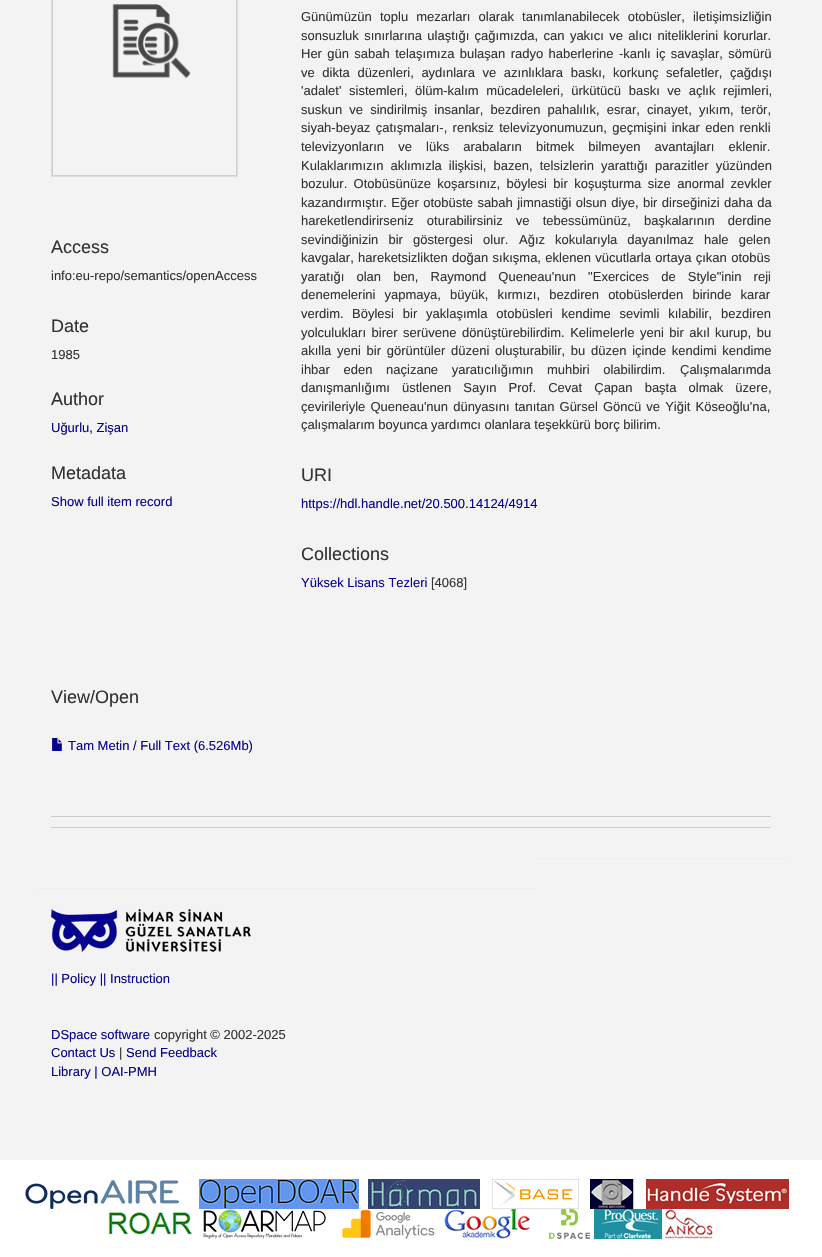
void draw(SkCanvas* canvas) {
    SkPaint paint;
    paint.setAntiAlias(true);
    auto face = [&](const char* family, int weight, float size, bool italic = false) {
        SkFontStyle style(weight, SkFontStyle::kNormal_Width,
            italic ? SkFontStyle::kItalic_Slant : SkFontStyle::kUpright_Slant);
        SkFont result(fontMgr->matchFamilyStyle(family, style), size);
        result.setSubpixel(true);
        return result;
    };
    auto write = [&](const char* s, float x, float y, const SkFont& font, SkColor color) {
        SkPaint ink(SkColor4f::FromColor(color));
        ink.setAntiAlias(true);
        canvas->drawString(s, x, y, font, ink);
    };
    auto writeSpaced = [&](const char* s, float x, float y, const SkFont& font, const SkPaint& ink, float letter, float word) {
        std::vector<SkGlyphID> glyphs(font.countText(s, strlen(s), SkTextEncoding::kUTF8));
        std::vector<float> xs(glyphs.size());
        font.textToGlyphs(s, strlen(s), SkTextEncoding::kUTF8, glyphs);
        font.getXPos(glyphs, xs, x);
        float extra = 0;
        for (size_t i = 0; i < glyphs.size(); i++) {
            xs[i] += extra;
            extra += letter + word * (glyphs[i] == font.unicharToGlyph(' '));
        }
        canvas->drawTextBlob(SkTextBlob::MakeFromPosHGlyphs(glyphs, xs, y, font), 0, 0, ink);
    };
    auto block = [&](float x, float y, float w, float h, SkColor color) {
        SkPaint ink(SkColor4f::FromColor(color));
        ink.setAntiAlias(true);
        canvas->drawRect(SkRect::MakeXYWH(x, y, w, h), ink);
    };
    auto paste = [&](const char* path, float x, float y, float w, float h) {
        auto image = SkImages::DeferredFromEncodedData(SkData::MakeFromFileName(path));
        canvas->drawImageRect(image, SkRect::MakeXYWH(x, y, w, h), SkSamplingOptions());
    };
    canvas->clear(SkColorSetRGB(243, 243, 243));
    paint.setStyle(SkPaint::kStroke_Style);
    paint.setStrokeWidth(1);
    paint.setColor(SkColorSetRGB(221, 221, 221));
    canvas->drawRect(SkRect::MakeXYWH(51.5f, -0.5f, 186, 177), paint);
    paste("pic1.png", 52, 0, 185, 176);
    auto kFont1 = face("Liberation Sans", 400, 18);
    write("Access", 51, 253, kFont1, SkColorSetRGB(51, 51, 51));
    auto kFont2 = face("Liberation Sans", 400, 13);
    write("info:eu-repo/semantics/openAccess", 51, 280, kFont2, SkColorSetRGB(51, 51, 51));
    write("Date", 51, 332, kFont1, SkColorSetRGB(51, 51, 51));
    write("1985", 51, 359, kFont2, SkColorSetRGB(51, 51, 51));
    write("Author", 51, 405, kFont1, SkColorSetRGB(51, 51, 51));
    write("Uğurlu, Zişan", 51, 432, kFont2, SkColorSetRGB(6, 3, 141));
    write("Metadata", 51, 479, kFont1, SkColorSetRGB(51, 51, 51));
    write("Show full item record", 51, 506, kFont2, SkColorSetRGB(6, 3, 141));
    paint.setStyle(SkPaint::kFill_Style);
    paint.setColor(SkColorSetRGB(51, 51, 51));
    writeSpaced("Günümüzün toplu mezarları olarak tanımlanabilecek otobüsler, iletişimsizliğin", 301, 21, kFont2, paint, 0, 4.5f);
    writeSpaced("sonsuzluk sınırlarına ulaştığı çağımızda, can yakıcı ve alıcı niteliklerini korurlar.", 301, 40, kFont2, paint, 0, 1.75f);
    writeSpaced("Her gün sabah telaşımıza bulaşan radyo haberlerine -kanlı iç savaşlar, sömürü", 301, 58, kFont2, paint, 0, 1.75f);
    writeSpaced("ve dikta düzenleri, aydınlara ve azınlıklara baskı, korkunç sefaletler, çağdışı", 301, 77, kFont2, paint, 0, 4);
    writeSpaced("'adalet' sistemleri, ölüm-kalım mücadeleleri, ürkütücü baskı ve açlık rejimleri,", 301, 95, kFont2, paint, 0, 4);
    writeSpaced("suskun ve sindirilmiş insanlar, bezdiren pahalılık, esrar, cinayet, yıkım, terör,", 301, 114, kFont2, paint, 0, 3.5f);
    writeSpaced("siyah-beyaz çatışmaları-, renksiz televizyonumuzun, geçmişini inkar eden renkli", 301, 132, kFont2, paint, 0, 1.75f);
    writeSpaced("televizyonların ve lüks arabaların bitmek bilmeyen avantajları eklenir.", 301, 151, kFont2, paint, 0, 10.5f);
    writeSpaced("Kulaklarımızın aklımızla ilişkisi, bazen, telsizlerin yarattığı parazitler yüzünden", 301, 170, kFont2, paint, 0, 3.5f);
    writeSpaced("bozulur. Otobüsünüze koşarsınız, böylesi bir koşuşturma size anormal zevkler", 301, 188, kFont2, paint, 0, 2.75f);
    writeSpaced("kazandırmıştır. Eğer otobüste sabah jimnastiği olsun diye, bir dirseğinizi daha da", 301, 207, kFont2, paint, 0, 0.75f);
    writeSpaced("hareketlendirirseniz oturabilirsiniz ve tebessümünüz, başkalarının derdine", 301, 225, kFont2, paint, 0, 9.5f);
    writeSpaced("sevindiğinizin bir göstergesi olur.", 301, 244, kFont2, paint, 0, 6.5f);
    writeSpaced("Ağız kokularıyla dayanılmaz hale gelen", 519, 244, kFont2, paint, 0, 6.5f);
    writeSpaced("kavgalar, hareketsizlikten doğan sıkışma, eklenen vücutlarla ortaya çıkan otobüs", 301, 262, kFont2, paint, 0, 0.75f);
    writeSpaced("yaratığı olan ben, Raymond Queneau'nun \"Exercices de Style\"inin reji", 301, 281, kFont2, paint, 0, 8.5f);
    writeSpaced("denemelerini yapmaya, büyük, kırmızı, bezdiren otobüslerden birinde karar", 301, 299, kFont2, paint, 0, 5.5f);
    write("verdim.", 301, 318, kFont2, SkColorSetRGB(51, 51, 51));
    writeSpaced("Böylesi bir yaklaşımla otobüsleri kendime sevimli kılabilir, bezdiren", 352, 318, kFont2, paint, 0, 5.25f);
    writeSpaced("yolculukları birer serüvene dönüştürebilirdim. Kelimelerle yeni bir akıl kurup, bu", 301, 337, kFont2, paint, 0, 1.9f);
    writeSpaced("akılla yeni bir görüntüler düzeni oluşturabilir, bu düzen içinde kendimi kendime", 301, 355, kFont2, paint, 0, 2.1f);
    writeSpaced("ihbar eden naçizane yaratıcılığımın muhbiri olabilirdim.", 301, 374, kFont2, paint, 0, 10);
    write("Çalışmalarımda", 680, 374, kFont2, SkColorSetRGB(51, 51, 51));
    writeSpaced("danışmanlığımı üstlenen Sayın Prof. Cevat Çapan başta olmak üzere,", 301, 392, kFont2, paint, 0, 8.5f);
    writeSpaced("çevirileriyle Queneau'nun dünyasını tanıtan Gürsel Göncü ve Yiğit Köseoğlu'na,", 301, 411, kFont2, paint, 0, 1.5f);
    write("çalışmalarım boyunca yardımcı olanlara teşekkürü borç bilirim.", 301, 429, kFont2, SkColorSetRGB(51, 51, 51));
    write("URI", 301, 481, kFont1, SkColorSetRGB(51, 51, 51));
    write("https://hdl.handle.net/20.500.14124/4914", 301, 508, kFont2, SkColorSetRGB(6, 3, 141));
    write("Collections", 301, 560, kFont1, SkColorSetRGB(51, 51, 51));
    write("Yüksek Lisans Tezleri", 301, 587, kFont2, SkColorSetRGB(6, 3, 141));
    write("[4068]", 431, 587, kFont2, SkColorSetRGB(51, 51, 51));
    write("View/Open", 51, 703, kFont1, SkColorSetRGB(51, 51, 51));
    paste("pic2.png", 52, 738, 10, 13);
    write("Tam Metin / Full Text (6.526Mb)", 68, 750, kFont2, SkColorSetRGB(6, 3, 141));
    block(51, 816, 720, 1, SkColorSetRGB(204, 204, 204));
    block(51, 827, 720, 1, SkColorSetRGB(204, 204, 204));
    block(536, 858, 250, 1, SkColorSetRGB(238, 238, 238));
    block(36, 888, 500, 1, SkColorSetRGB(238, 238, 238));
    paste("pic3.png", 51, 909, 200, 43);
    write("|| Policy || Instruction", 51, 983, kFont2, SkColorSetRGB(6, 3, 141));
    write("DSpace software", 51, 1039, kFont2, SkColorSetRGB(6, 3, 141));
    write("copyright © 2002-2025", 154, 1039, kFont2, SkColorSetRGB(51, 51, 51));
    write("Contact Us", 51, 1057, kFont2, SkColorSetRGB(6, 3, 141));
    write("|", 119, 1057, kFont2, SkColorSetRGB(51, 51, 51));
    write("Send Feedback", 126, 1057, kFont2, SkColorSetRGB(6, 3, 141));
    write("Library | OAI-PMH", 51, 1076, kFont2, SkColorSetRGB(6, 3, 141));
    block(0, 1160, 822, 97, SK_ColorWHITE);
    paste("pic4.png", 25, 1180, 154, 29);
    paste("pic5.png", 199, 1179, 160, 30);
    paste("pic6.png", 368, 1179, 112, 30);
    paste("pic7.png", 492, 1179, 87, 30);
    paste("pic8.png", 590, 1179, 44, 30);
    paste("pic9.png", 646, 1179, 143, 30);
    paste("pic10.png", 108, 1212, 84, 23);
    paste("pic11.png", 203, 1209, 123, 30);
    paste("pic12.png", 342, 1209, 93, 30);
    paste("pic13.png", 444, 1209, 86, 30);
    paste("pic14.png", 549, 1209, 41, 30);
    paste("pic15.png", 594, 1209, 68, 30);
    paste("pic16.png", 664, 1209, 49, 30);
}
